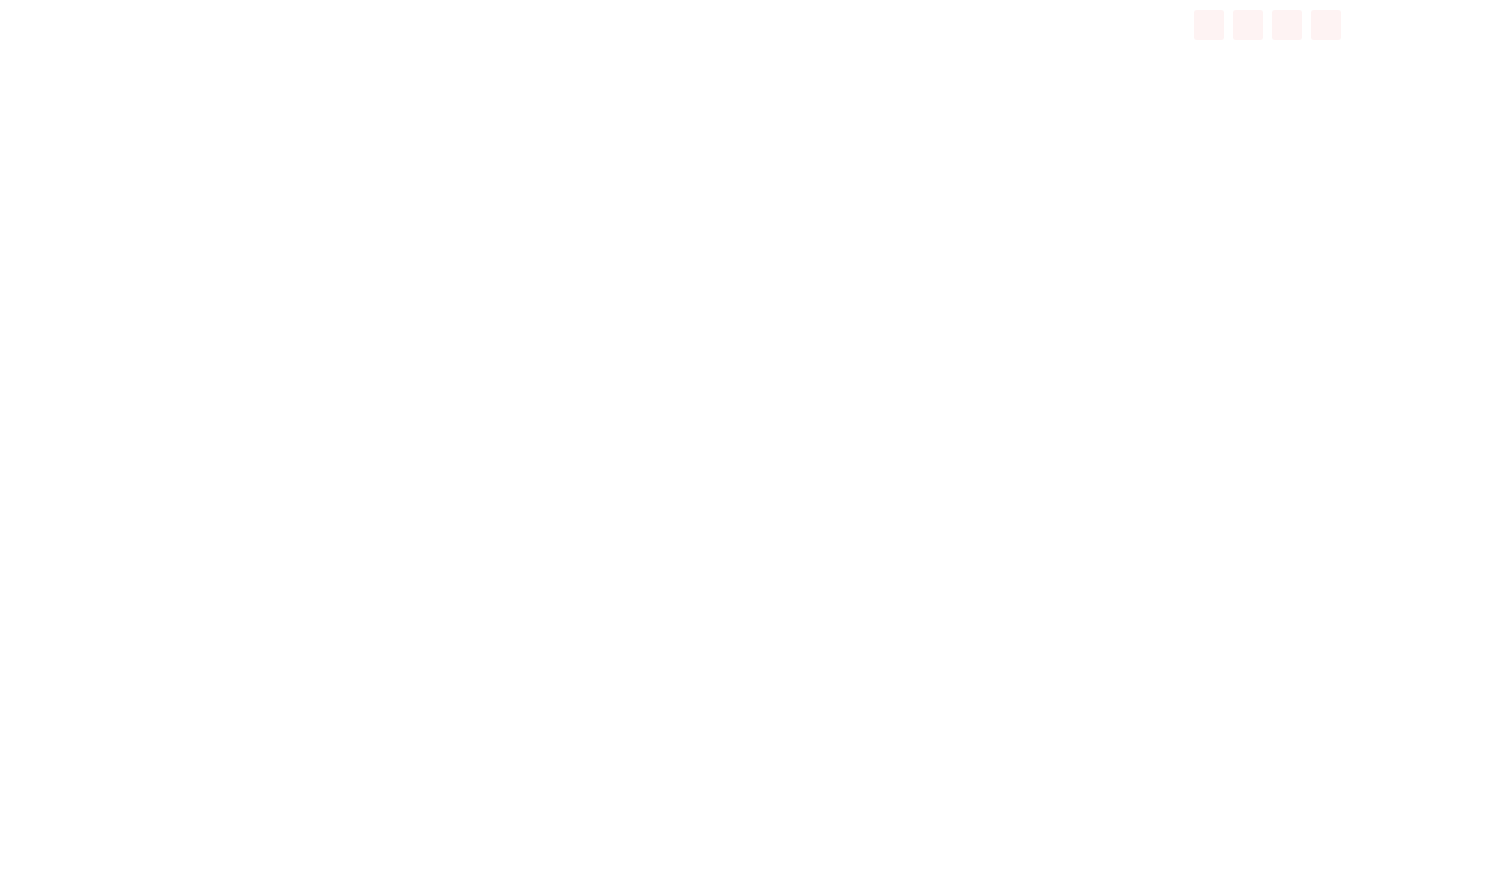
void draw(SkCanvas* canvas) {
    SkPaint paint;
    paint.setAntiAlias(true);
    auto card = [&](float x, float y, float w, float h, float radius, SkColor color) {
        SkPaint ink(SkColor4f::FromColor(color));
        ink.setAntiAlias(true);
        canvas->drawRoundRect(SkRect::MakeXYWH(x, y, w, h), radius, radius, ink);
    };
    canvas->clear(SK_ColorWHITE);
    card(1194, 10, 30, 30, 3, SkColorSetRGB(254, 243, 243));
    card(1233, 10, 30, 30, 3, SkColorSetRGB(254, 243, 243));
    card(1272, 10, 30, 30, 3, SkColorSetRGB(254, 243, 243));
    card(1311, 10, 30, 30, 3, SkColorSetRGB(254, 243, 243));
}
